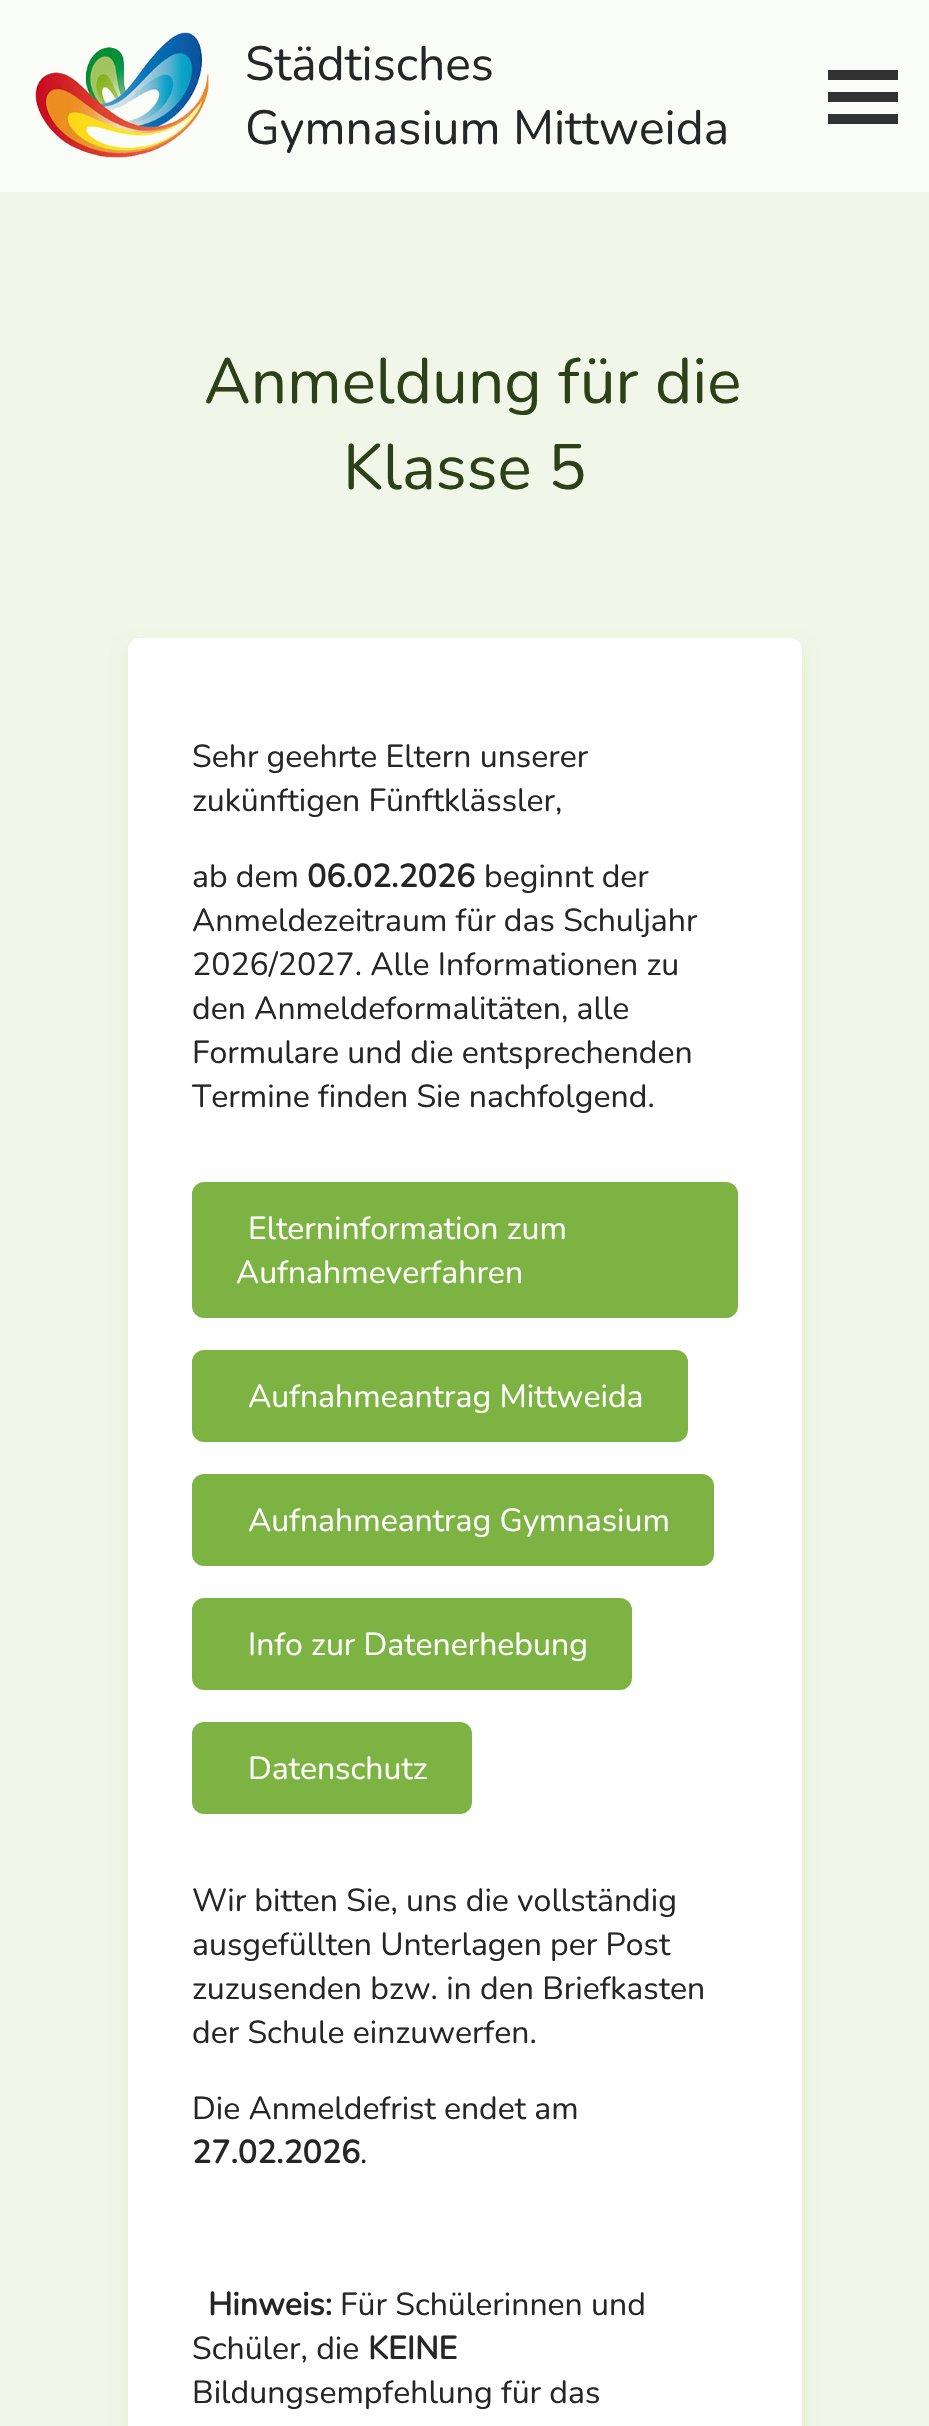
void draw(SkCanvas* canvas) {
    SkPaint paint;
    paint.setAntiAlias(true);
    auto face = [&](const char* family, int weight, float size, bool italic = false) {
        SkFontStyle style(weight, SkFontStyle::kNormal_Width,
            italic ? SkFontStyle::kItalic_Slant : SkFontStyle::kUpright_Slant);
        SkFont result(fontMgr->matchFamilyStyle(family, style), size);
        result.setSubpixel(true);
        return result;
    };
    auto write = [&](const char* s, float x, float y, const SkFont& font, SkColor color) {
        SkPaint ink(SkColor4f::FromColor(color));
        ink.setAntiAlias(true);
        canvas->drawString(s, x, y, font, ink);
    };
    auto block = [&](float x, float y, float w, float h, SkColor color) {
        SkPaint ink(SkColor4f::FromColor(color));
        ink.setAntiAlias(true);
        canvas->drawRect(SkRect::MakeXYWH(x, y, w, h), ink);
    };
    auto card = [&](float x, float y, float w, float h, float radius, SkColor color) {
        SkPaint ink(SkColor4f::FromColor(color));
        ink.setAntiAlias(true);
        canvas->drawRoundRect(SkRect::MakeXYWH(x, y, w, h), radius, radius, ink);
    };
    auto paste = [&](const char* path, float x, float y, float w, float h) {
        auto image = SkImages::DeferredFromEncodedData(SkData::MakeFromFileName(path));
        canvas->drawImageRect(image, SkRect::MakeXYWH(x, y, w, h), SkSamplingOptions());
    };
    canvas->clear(SkColorSetRGB(240, 247, 233));
    block(0, 0, 929, 192, SkColorSetRGB(250, 252, 248));
    paste("pic1.png", 35, 32, 174, 126);
    auto kFont1 = face("Nunito", 400, 48);
    write("Städtisches", 245, 80, kFont1, SkColorSetRGB(38, 38, 38));
    write("Gymnasium Mittweida", 245, 144, kFont1, SkColorSetRGB(38, 38, 38));
    block(828, 70, 70, 10, SkColorSetRGB(50, 50, 50));
    block(828, 92, 70, 10, SkColorSetRGB(50, 50, 50));
    block(828, 114, 70, 10, SkColorSetRGB(50, 50, 50));
    auto kFont2 = face("Nunito", 400, 64);
    write("Anmeldung für die", 204, 403, kFont2, SkColorSetRGB(45, 64, 24));
    write("Klasse 5", 343, 489, kFont2, SkColorSetRGB(45, 64, 24));
    paint.setColor(SkColorSetRGB(221, 236, 205));
    paint.setMaskFilter(SkMaskFilter::MakeBlur(kNormal_SkBlurStyle, 8));
    canvas->drawRoundRect(SkRect::MakeXYWH(128, 646, 674, 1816), 12, 12, paint);
    paint.setMaskFilter(nullptr);
    card(128, 638, 674, 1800, 12, SK_ColorWHITE);
    auto kFont3 = face("Nunito", 400, 32);
    write("Sehr geehrte Eltern unserer", 192, 767, kFont3, SkColorSetRGB(38, 38, 38));
    write("zukünftigen Fünftklässler,", 192, 811, kFont3, SkColorSetRGB(38, 38, 38));
    write("ab dem", 192, 887, kFont3, SkColorSetRGB(38, 38, 38));
    auto kFont4 = face("Nunito", 700, 32);
    write("06.02.2026", 307, 887, kFont4, SkColorSetRGB(38, 38, 38));
    write("beginnt der", 484, 887, kFont3, SkColorSetRGB(38, 38, 38));
    write("Anmeldezeitraum für das Schuljahr", 192, 931, kFont3, SkColorSetRGB(38, 38, 38));
    write("2026/2027. Alle Informationen zu", 192, 975, kFont3, SkColorSetRGB(38, 38, 38));
    write("den Anmeldeformalitäten, alle", 192, 1019, kFont3, SkColorSetRGB(38, 38, 38));
    write("Formulare und die entsprechenden", 192, 1063, kFont3, SkColorSetRGB(38, 38, 38));
    write("Termine finden Sie nachfolgend.", 192, 1107, kFont3, SkColorSetRGB(38, 38, 38));
    paint.setColor(SkColorSetRGB(124, 179, 66));
    canvas->drawRoundRect(SkRect::MakeXYWH(194, 1184, 542, 132), 10, 10, paint);
    paint.setStyle(SkPaint::kStroke_Style);
    paint.setStrokeWidth(4);
    canvas->drawRoundRect(SkRect::MakeXYWH(194, 1184, 542, 132), 10, 10, paint);
    write("Elterninformation zum", 248, 1239, kFont3, SK_ColorWHITE);
    write("Aufnahmeverfahren", 236, 1283, kFont3, SK_ColorWHITE);
    paint.setStyle(SkPaint::kFill_Style);
    canvas->drawRoundRect(SkRect::MakeXYWH(194, 1352, 492, 88), 10, 10, paint);
    paint.setStyle(SkPaint::kStroke_Style);
    canvas->drawRoundRect(SkRect::MakeXYWH(194, 1352, 492, 88), 10, 10, paint);
    write("Aufnahmeantrag Mittweida", 248, 1407, kFont3, SK_ColorWHITE);
    paint.setStyle(SkPaint::kFill_Style);
    canvas->drawRoundRect(SkRect::MakeXYWH(194, 1476, 518, 88), 10, 10, paint);
    paint.setStyle(SkPaint::kStroke_Style);
    canvas->drawRoundRect(SkRect::MakeXYWH(194, 1476, 518, 88), 10, 10, paint);
    write("Aufnahmeantrag Gymnasium", 248, 1531, kFont3, SK_ColorWHITE);
    paint.setStyle(SkPaint::kFill_Style);
    canvas->drawRoundRect(SkRect::MakeXYWH(194, 1600, 436, 88), 10, 10, paint);
    paint.setStyle(SkPaint::kStroke_Style);
    canvas->drawRoundRect(SkRect::MakeXYWH(194, 1600, 436, 88), 10, 10, paint);
    write("Info zur Datenerhebung", 248, 1655, kFont3, SK_ColorWHITE);
    paint.setStyle(SkPaint::kFill_Style);
    canvas->drawRoundRect(SkRect::MakeXYWH(194, 1724, 276, 88), 10, 10, paint);
    paint.setStyle(SkPaint::kStroke_Style);
    canvas->drawRoundRect(SkRect::MakeXYWH(194, 1724, 276, 88), 10, 10, paint);
    write("Datenschutz", 248, 1779, kFont3, SK_ColorWHITE);
    write("Wir bitten Sie, uns die vollständig", 192, 1911, kFont3, SkColorSetRGB(38, 38, 38));
    write("ausgefüllten Unterlagen per Post", 192, 1955, kFont3, SkColorSetRGB(38, 38, 38));
    write("zuzusenden bzw. in den Briefkasten", 192, 1999, kFont3, SkColorSetRGB(38, 38, 38));
    write("der Schule einzuwerfen.", 192, 2043, kFont3, SkColorSetRGB(38, 38, 38));
    write("Die Anmeldefrist endet am", 192, 2119, kFont3, SkColorSetRGB(38, 38, 38));
    write("27.02.2026", 192, 2163, kFont4, SkColorSetRGB(38, 38, 38));
    write(".", 360, 2163, kFont3, SkColorSetRGB(38, 38, 38));
    write("Hinweis:", 208, 2315, kFont4, SkColorSetRGB(38, 38, 38));
    write("Für Schülerinnen und", 340, 2315, kFont3, SkColorSetRGB(38, 38, 38));
    write("Schüler, die", 192, 2359, kFont3, SkColorSetRGB(38, 38, 38));
    write("KEINE", 368, 2359, kFont4, SkColorSetRGB(38, 38, 38));
    write("Bildungsempfehlung für das", 192, 2403, kFont3, SkColorSetRGB(38, 38, 38));
}
